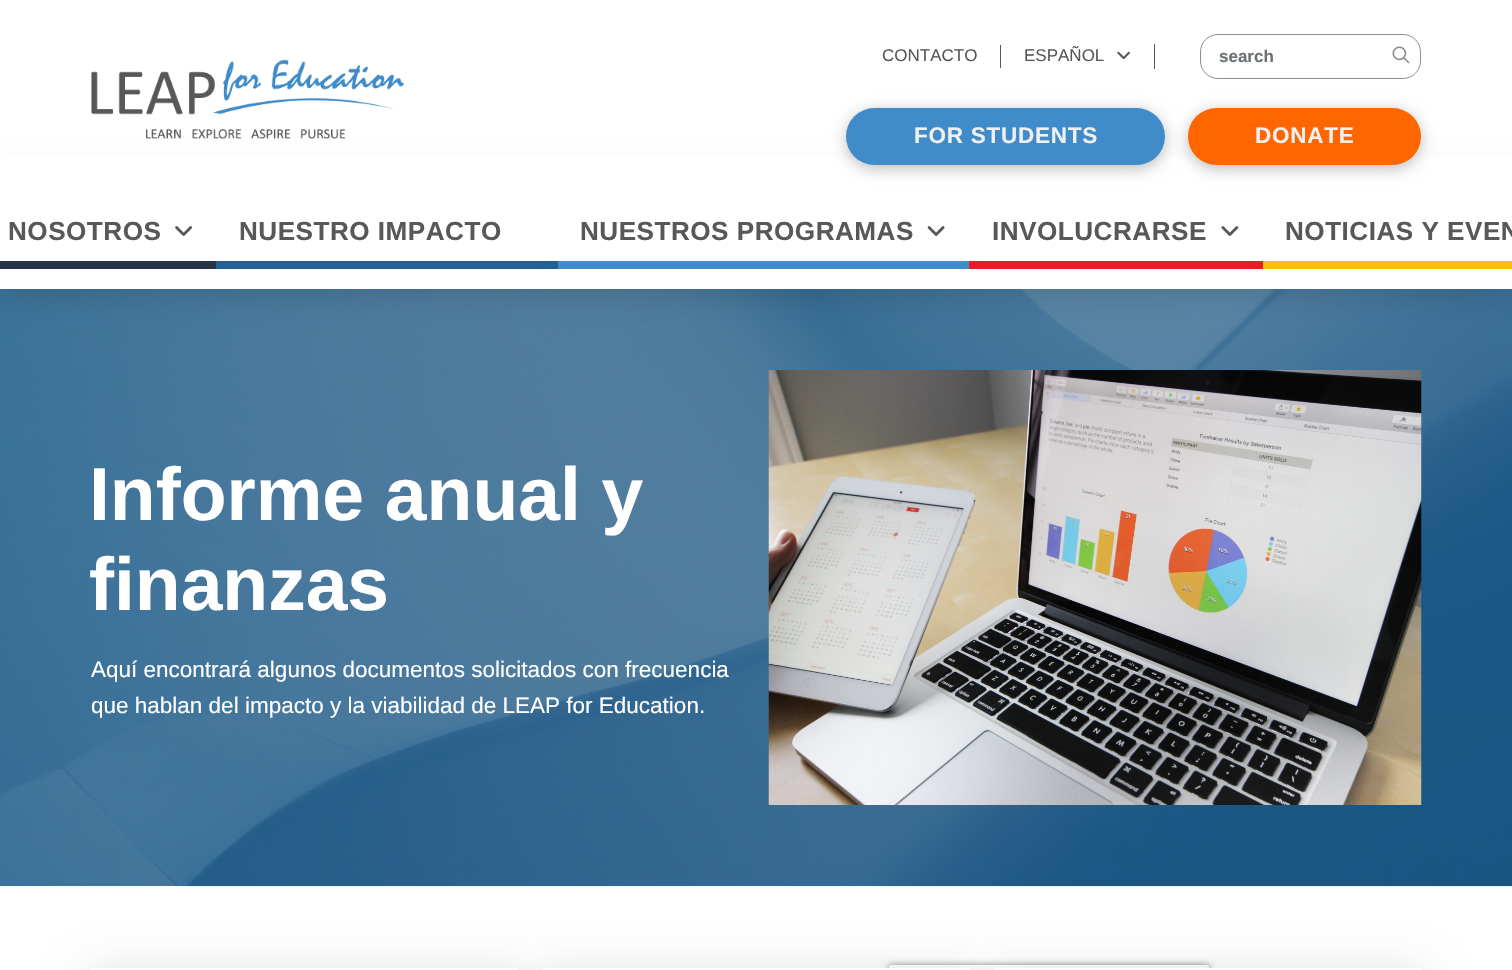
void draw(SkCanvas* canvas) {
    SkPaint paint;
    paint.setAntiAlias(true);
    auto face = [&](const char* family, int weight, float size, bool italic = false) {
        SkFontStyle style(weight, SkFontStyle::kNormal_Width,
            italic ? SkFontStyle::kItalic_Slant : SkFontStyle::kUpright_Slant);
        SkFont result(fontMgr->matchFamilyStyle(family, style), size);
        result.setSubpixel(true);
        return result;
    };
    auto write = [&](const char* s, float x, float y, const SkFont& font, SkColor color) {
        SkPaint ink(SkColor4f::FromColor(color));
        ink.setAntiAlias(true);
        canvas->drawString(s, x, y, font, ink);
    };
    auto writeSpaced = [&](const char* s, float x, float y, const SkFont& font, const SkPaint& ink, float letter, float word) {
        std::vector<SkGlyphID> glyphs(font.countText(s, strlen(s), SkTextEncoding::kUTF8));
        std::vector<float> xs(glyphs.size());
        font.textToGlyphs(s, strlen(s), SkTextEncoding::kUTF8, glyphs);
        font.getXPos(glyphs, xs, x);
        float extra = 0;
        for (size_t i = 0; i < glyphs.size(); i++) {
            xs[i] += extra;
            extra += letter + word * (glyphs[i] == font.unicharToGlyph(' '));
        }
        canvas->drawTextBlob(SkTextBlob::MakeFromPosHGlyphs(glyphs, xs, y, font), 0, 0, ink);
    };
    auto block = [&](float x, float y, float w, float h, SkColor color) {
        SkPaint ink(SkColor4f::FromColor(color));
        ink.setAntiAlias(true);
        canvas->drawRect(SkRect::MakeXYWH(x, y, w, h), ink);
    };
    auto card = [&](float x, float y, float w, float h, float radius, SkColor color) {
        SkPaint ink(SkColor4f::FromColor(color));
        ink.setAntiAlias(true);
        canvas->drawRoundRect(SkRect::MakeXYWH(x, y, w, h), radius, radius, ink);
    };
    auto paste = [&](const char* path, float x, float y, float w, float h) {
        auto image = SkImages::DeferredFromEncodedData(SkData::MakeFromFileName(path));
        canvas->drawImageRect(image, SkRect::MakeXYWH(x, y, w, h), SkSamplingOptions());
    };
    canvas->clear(SK_ColorWHITE);
    paste("pic7.png", 0, 289, 1512, 598);
    paint.setColor(SkColorSetARGB(38, 0, 0, 0));
    paint.setMaskFilter(SkMaskFilter::MakeBlur(kNormal_SkBlurStyle, 15.5f));
    canvas->drawRect(SkRect::MakeXYWH(0, 180, 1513, 113), paint);
    paint.setMaskFilter(nullptr);
    paste("pic1.png", 91, 59, 313, 80);
    block(1000, 45, 1, 23, SkColorSetRGB(88, 88, 90));
    auto kFont1 = face("Liberation Sans", 400, 17);
    write("CONTACTO", 882, 61, kFont1, SkColorSetRGB(88, 88, 90));
    block(1154, 44, 1, 25, SkColorSetRGB(88, 88, 90));
    write("ESPAÑOL", 1024, 61, kFont1, SkColorSetRGB(88, 88, 90));
    paste("pic2.png", 1117, 51, 13, 9);
    paint.setStyle(SkPaint::kStroke_Style);
    paint.setStrokeWidth(1);
    paint.setColor(SkColorSetRGB(137, 141, 143));
    canvas->drawRoundRect(SkRect::MakeXYWH(1200.5f, 34.5f, 220, 44), 17.5f, 17.5f, paint);
    auto kFont2 = face("Liberation Sans", 700, 17);
    write("search", 1219, 62, kFont2, SkColorSetRGB(107, 112, 115));
    paste("pic3.png", 1392, 46, 18, 18);
    block(0, 157, 1512, 132, SK_ColorWHITE);
    paint.setStyle(SkPaint::kFill_Style);
    paint.setColor(SkColorSetARGB(64, 0, 0, 0));
    paint.setMaskFilter(SkMaskFilter::MakeBlur(kNormal_SkBlurStyle, 7.5f));
    canvas->drawRoundRect(SkRect::MakeXYWH(846, 111, 319, 58), 29, 29, paint);
    paint.setMaskFilter(nullptr);
    card(846, 108, 319, 57, 28.5f, SkColorSetRGB(64, 139, 202));
    auto kFont3 = face("Liberation Sans", 700, 22.5f);
    paint.setColor(SkColorSetRGB(240, 240, 240));
    writeSpaced("FOR STUDENTS", 914, 143, kFont3, paint, 0.75f, 0);
    paint.setColor(SkColorSetARGB(64, 0, 0, 0));
    paint.setMaskFilter(SkMaskFilter::MakeBlur(kNormal_SkBlurStyle, 7.5f));
    canvas->drawRoundRect(SkRect::MakeXYWH(1188, 111, 233, 58), 29, 29, paint);
    paint.setMaskFilter(nullptr);
    card(1188, 108, 233, 57, 28.5f, SkColorSetRGB(255, 102, 0));
    paint.setColor(SkColorSetRGB(240, 240, 240));
    writeSpaced("DONATE", 1255, 143, kFont3, paint, 0.75f, 0);
    block(0, 261, 216, 8, SkColorSetRGB(39, 52, 70));
    auto kFont4 = face("Liberation Sans", 700, 26.1f);
    paint.setColor(SkColorSetRGB(88, 88, 90));
    writeSpaced("NOSOTROS", 8, 240, kFont4, paint, 0.5f, 0);
    paste("pic4.png", 175, 226, 17, 10);
    block(216, 261, 342, 8, SkColorSetRGB(35, 96, 147));
    writeSpaced("NUESTRO IMPACTO", 239, 240, kFont4, paint, 0.5f, 0);
    block(558, 261, 411, 8, SkColorSetRGB(64, 139, 202));
    writeSpaced("NUESTROS PROGRAMAS", 580, 240, kFont4, paint, 0.5f, 0);
    paste("pic5.png", 927, 226, 18, 10);
    block(969, 261, 294, 8, SkColorSetRGB(237, 28, 36));
    writeSpaced("INVOLUCRARSE", 992, 240, kFont4, paint, 0.5f, 0);
    paste("pic6.png", 1221, 226, 18, 10);
    block(1263, 261, 249, 8, SkColorSetRGB(254, 192, 15));
    writeSpaced("NOTICIAS Y EVEN", 1285, 240, kFont4, paint, 0.5f, 0);
    auto kFont5 = face("Liberation Sans", 700, 75);
    write("Informe anual y", 89, 520, kFont5, SK_ColorWHITE);
    write("finanzas", 89, 610, kFont5, SK_ColorWHITE);
    auto kFont6 = face("Liberation Sans", 400, 22.5f);
    write("Aquí encontrará algunos documentos solicitados con frecuencia", 91, 677, kFont6, SK_ColorWHITE);
    write("que hablan del impacto y la viabilidad de LEAP for Education.", 91, 713, kFont6, SK_ColorWHITE);
    paste("pic8.png", 768, 370, 654, 435);
    paint.setColor(SkColorSetARGB(38, 0, 0, 0));
    paint.setMaskFilter(SkMaskFilter::MakeBlur(kNormal_SkBlurStyle, 22.5f));
    canvas->drawRect(SkRect::MakeXYWH(91, 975, 427, 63), paint);
    paint.setMaskFilter(nullptr);
    block(91, 968, 427, 2, SK_ColorWHITE);
    paint.setMaskFilter(SkMaskFilter::MakeBlur(kNormal_SkBlurStyle, 22.5f));
    canvas->drawRect(SkRect::MakeXYWH(543, 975, 427, 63), paint);
    paint.setMaskFilter(nullptr);
    canvas->save();
    canvas->clipPath(SkPathBuilder(SkPathFillType::kEvenOdd).moveTo(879, 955).lineTo(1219, 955).lineTo(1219, 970).lineTo(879, 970).close().moveTo(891.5f, 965).lineTo(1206.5f, 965).cubicTo(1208, 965, 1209, 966, 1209, 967.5f).lineTo(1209, 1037.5f).cubicTo(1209, 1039, 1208, 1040, 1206.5f, 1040).lineTo(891.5f, 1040).cubicTo(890, 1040, 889, 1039, 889, 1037.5f).lineTo(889, 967.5f).cubicTo(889, 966, 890, 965, 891.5f, 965).close().detach(), true);
    paint.setColor(SkColorSetRGB(128, 128, 128));
    paint.setMaskFilter(SkMaskFilter::MakeBlur(kNormal_SkBlurStyle, 3));
    canvas->drawRoundRect(SkRect::MakeXYWH(889, 965, 320, 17), 2.5f, 2.5f, paint);
    paint.setMaskFilter(nullptr);
    canvas->restore();
    block(543, 968, 427, 2, SK_ColorWHITE);
    paint.setColor(SkColorSetARGB(38, 0, 0, 0));
    paint.setMaskFilter(SkMaskFilter::MakeBlur(kNormal_SkBlurStyle, 22.5f));
    canvas->drawRect(SkRect::MakeXYWH(995, 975, 426, 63), paint);
    paint.setMaskFilter(nullptr);
    block(995, 968, 426, 2, SK_ColorWHITE);
}
